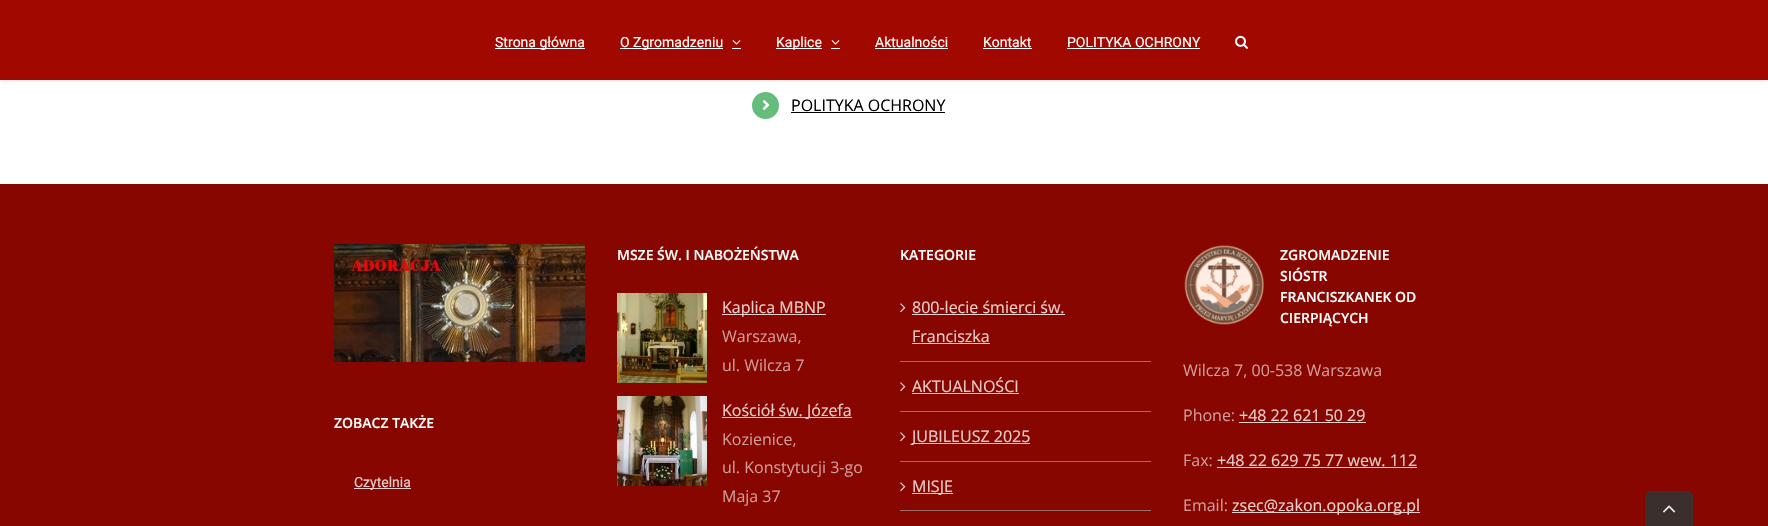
void draw(SkCanvas* canvas) {
    SkPaint paint;
    paint.setAntiAlias(true);
    auto face = [&](const char* family, int weight, float size, bool italic = false) {
        SkFontStyle style(weight, SkFontStyle::kNormal_Width,
            italic ? SkFontStyle::kItalic_Slant : SkFontStyle::kUpright_Slant);
        SkFont result(fontMgr->matchFamilyStyle(family, style), size);
        result.setSubpixel(true);
        return result;
    };
    auto write = [&](const char* s, float x, float y, const SkFont& font, SkColor color) {
        SkPaint ink(SkColor4f::FromColor(color));
        ink.setAntiAlias(true);
        canvas->drawString(s, x, y, font, ink);
    };
    auto block = [&](float x, float y, float w, float h, SkColor color) {
        SkPaint ink(SkColor4f::FromColor(color));
        ink.setAntiAlias(true);
        canvas->drawRect(SkRect::MakeXYWH(x, y, w, h), ink);
    };
    auto paste = [&](const char* path, float x, float y, float w, float h) {
        auto image = SkImages::DeferredFromEncodedData(SkData::MakeFromFileName(path));
        canvas->drawImageRect(image, SkRect::MakeXYWH(x, y, w, h), SkSamplingOptions());
    };
    canvas->clear(SK_ColorWHITE);
    paint.setColor(SkColorSetARGB(31, 0, 0, 0));
    paint.setMaskFilter(SkMaskFilter::MakeBlur(kNormal_SkBlurStyle, 1.5f));
    canvas->drawRect(SkRect::MakeXYWH(0, 1, 1768, 80), paint);
    paint.setMaskFilter(nullptr);
    block(0, 0, 1768, 80, SkColorSetRGB(160, 8, 0));
    block(495, 48, 90, 1, SK_ColorWHITE);
    auto kFont1 = face("Roboto", 400, 14);
    write("Strona główna", 495, 47, kFont1, SK_ColorWHITE);
    block(620, 48, 103, 1, SK_ColorWHITE);
    write("O Zgromadzeniu", 620, 47, kFont1, SK_ColorWHITE);
    paste("pic1.png", 732, 40, 9, 5);
    block(732, 48, 9, 1, SK_ColorWHITE);
    block(776, 48, 46, 1, SK_ColorWHITE);
    write("Kaplice", 776, 47, kFont1, SK_ColorWHITE);
    paste("pic1.png", 831, 40, 9, 5);
    block(831, 48, 9, 1, SK_ColorWHITE);
    write("Aktualności", 875, 47, kFont1, SK_ColorWHITE);
    block(875, 48, 73, 1, SK_ColorWHITE);
    write("Kontakt", 983, 47, kFont1, SK_ColorWHITE);
    block(983, 48, 49, 1, SK_ColorWHITE);
    write("POLITYKA OCHRONY", 1067, 47, kFont1, SK_ColorWHITE);
    block(1067, 48, 133, 1, SK_ColorWHITE);
    paste("pic2.png", 1235, 35, 13, 14);
    paint.setColor(SkColorSetRGB(101, 188, 123));
    canvas->drawCircle(765.5f, 105.5f, 13.5f, paint);
    paste("pic3.png", 762, 100, 8, 10);
    auto kFont2 = face("Open Sans", 400, 16);
    write("POLITYKA OCHRONY", 791, 111, kFont2, SK_ColorBLACK);
    block(791, 112, 154, 1, SK_ColorBLACK);
    block(0, 184, 1768, 342, SkColorSetRGB(135, 6, 0));
    paste("pic4.png", 334, 244, 251, 118);
    auto kFont3 = face("Open Sans", 600, 14);
    write("ZOBACZ TAKŻE", 334, 428, kFont3, SK_ColorWHITE);
    block(354, 488, 57, 1, SkColorSetRGB(231, 205, 204));
    write("Czytelnia", 354, 487, kFont1, SkColorSetRGB(231, 206, 204));
    write("MSZE ŚW. I NABOŻEŃSTWA", 617, 260, kFont3, SK_ColorWHITE);
    paste("pic5.png", 617, 293, 90, 90);
    block(722, 314, 104, 1, SkColorSetRGB(231, 205, 204));
    write("Kaplica MBNP", 722, 313, kFont2, SkColorSetRGB(231, 206, 204));
    write("Warszawa,", 722, 342, kFont2, SkColorSetRGB(207, 155, 153));
    write("ul. Wilcza 7", 722, 371, kFont2, SkColorSetRGB(207, 155, 153));
    paste("pic6.png", 617, 396, 90, 90);
    block(722, 417, 130, 1, SkColorSetRGB(231, 205, 204));
    write("Kościół św. Józefa", 722, 416, kFont2, SkColorSetRGB(231, 206, 204));
    write("Kozienice,", 722, 445, kFont2, SkColorSetRGB(207, 155, 153));
    write("ul. Konstytucji 3-go", 722, 473, kFont2, SkColorSetRGB(207, 155, 153));
    write("Maja 37", 722, 502, kFont2, SkColorSetRGB(207, 155, 153));
    write("KATEGORIE", 900, 260, kFont3, SK_ColorWHITE);
    block(900, 361, 251, 1, SkColorSetRGB(160, 108, 104));
    paste("pic7.png", 900, 303, 6, 10);
    write("800-lecie śmierci św.", 912, 313, kFont2, SkColorSetRGB(231, 206, 204));
    block(912, 314, 153, 1, SkColorSetRGB(231, 205, 204));
    write("Franciszka", 912, 342, kFont2, SkColorSetRGB(231, 206, 204));
    block(912, 343, 78, 1, SkColorSetRGB(231, 205, 204));
    block(900, 411, 251, 1, SkColorSetRGB(160, 108, 104));
    paste("pic7.png", 900, 382, 6, 10);
    write("AKTUALNOŚCI", 912, 392, kFont2, SkColorSetRGB(231, 206, 204));
    block(912, 393, 107, 1, SkColorSetRGB(231, 205, 204));
    block(900, 461, 251, 1, SkColorSetRGB(160, 108, 104));
    paste("pic7.png", 900, 432, 6, 10);
    block(912, 443, 118, 1, SkColorSetRGB(231, 205, 204));
    write("JUBILEUSZ 2025", 912, 442, kFont2, SkColorSetRGB(231, 206, 204));
    block(900, 510, 251, 1, SkColorSetRGB(160, 108, 104));
    paste("pic7.png", 900, 482, 6, 10);
    block(912, 493, 41, 1, SkColorSetRGB(231, 205, 204));
    write("MISJE", 912, 492, kFont2, SkColorSetRGB(231, 206, 204));
    paste("pic8.png", 1184, 245, 80, 80);
    write("ZGROMADZENIE", 1280, 260, kFont3, SK_ColorWHITE);
    write("SIÓSTR", 1280, 281, kFont3, SK_ColorWHITE);
    write("FRANCISZKANEK OD", 1280, 302, kFont3, SK_ColorWHITE);
    write("CIERPIĄCYCH", 1280, 323, kFont3, SK_ColorWHITE);
    write("Wilcza 7, 00-538 Warszawa", 1183, 376, kFont2, SkColorSetRGB(207, 155, 153));
    write("Phone:", 1183, 421, kFont2, SkColorSetRGB(207, 155, 153));
    write("+48 22 621 50 29", 1239, 421, kFont2, SkColorSetRGB(231, 206, 204));
    block(1239, 422, 127, 1, SkColorSetRGB(231, 205, 204));
    write("Fax:", 1183, 466, kFont2, SkColorSetRGB(207, 155, 153));
    write("+48 22 629 75 77 wew. 112", 1217, 466, kFont2, SkColorSetRGB(231, 206, 204));
    block(1217, 467, 200, 1, SkColorSetRGB(231, 205, 204));
    write("Email:", 1183, 511, kFont2, SkColorSetRGB(207, 155, 153));
    block(1232, 512, 188, 1, SkColorSetRGB(231, 205, 204));
    write("zsec@zakon.opoka.org.pl", 1232, 511, kFont2, SkColorSetRGB(231, 206, 204));
    paint.setColor(SkColorSetRGB(59, 47, 46));
    canvas->drawPath(SkPathBuilder().moveTo(1651, 491).lineTo(1687, 491).cubicTo(1690.5f, 491, 1693, 493.5f, 1693, 497).lineTo(1693, 526).lineTo(1645, 526).lineTo(1645, 497).cubicTo(1645, 493.5f, 1647.5f, 491, 1651, 491).close().detach(), paint);
    paste("pic9.png", 1663, 505, 13, 8);
}
